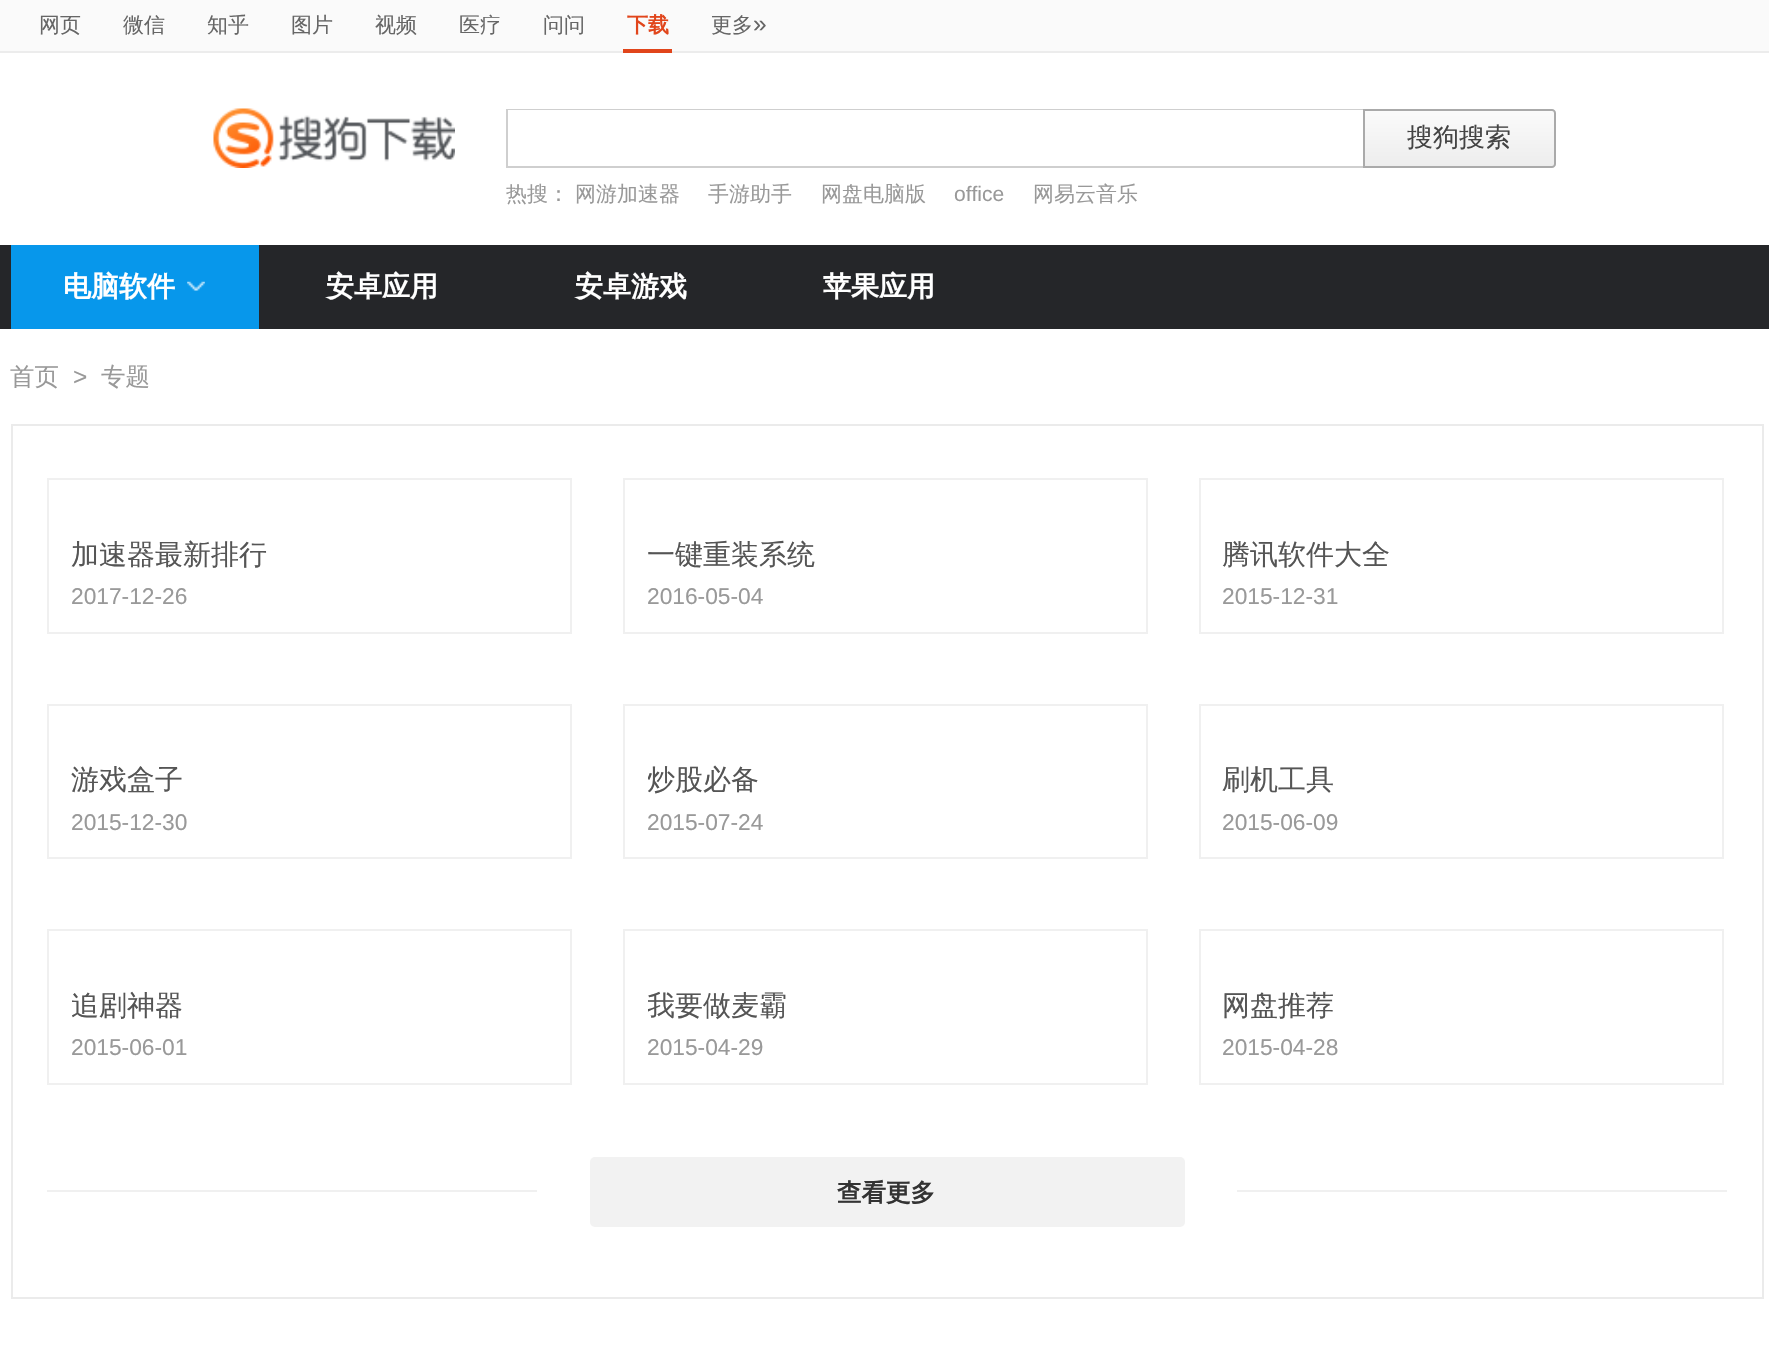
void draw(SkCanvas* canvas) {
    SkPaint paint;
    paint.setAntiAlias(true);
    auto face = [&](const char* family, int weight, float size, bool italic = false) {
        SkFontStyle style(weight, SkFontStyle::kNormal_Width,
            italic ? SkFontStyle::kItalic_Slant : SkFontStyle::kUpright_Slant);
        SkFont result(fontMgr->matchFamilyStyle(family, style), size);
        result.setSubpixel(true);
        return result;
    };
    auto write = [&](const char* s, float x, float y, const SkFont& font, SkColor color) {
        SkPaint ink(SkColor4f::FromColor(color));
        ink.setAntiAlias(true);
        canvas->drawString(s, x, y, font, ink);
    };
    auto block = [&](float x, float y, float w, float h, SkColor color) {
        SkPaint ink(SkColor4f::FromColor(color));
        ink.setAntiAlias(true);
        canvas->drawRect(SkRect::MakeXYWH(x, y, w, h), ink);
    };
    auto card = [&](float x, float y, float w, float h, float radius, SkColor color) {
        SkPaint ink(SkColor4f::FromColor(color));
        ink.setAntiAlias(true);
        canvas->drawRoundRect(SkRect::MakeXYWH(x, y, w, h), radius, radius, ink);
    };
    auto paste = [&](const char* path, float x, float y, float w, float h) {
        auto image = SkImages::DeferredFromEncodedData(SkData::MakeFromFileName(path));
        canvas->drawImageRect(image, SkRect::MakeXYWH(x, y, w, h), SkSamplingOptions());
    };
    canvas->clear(SK_ColorWHITE);
    block(0, 0, 1769, 51, SkColorSetRGB(250, 250, 250));
    block(0, 51, 1769, 2, SkColorSetRGB(236, 236, 236));
    auto kFont1 = face("WenQuanYi Zen Hei", 500, 21);
    write("网页", 39, 32, kFont1, SkColorSetRGB(102, 102, 102));
    write("微信", 123, 32, kFont1, SkColorSetRGB(102, 102, 102));
    write("知乎", 207, 32, kFont1, SkColorSetRGB(102, 102, 102));
    write("图片", 291, 32, kFont1, SkColorSetRGB(102, 102, 102));
    write("视频", 375, 32, kFont1, SkColorSetRGB(102, 102, 102));
    write("医疗", 459, 32, kFont1, SkColorSetRGB(102, 102, 102));
    write("问问", 543, 32, kFont1, SkColorSetRGB(102, 102, 102));
    block(623, 49, 49, 4, SkColorSetRGB(225, 69, 27));
    auto kFont2 = face("WenQuanYi Zen Hei", 700, 21);
    write("下载", 627, 32, kFont2, SkColorSetRGB(225, 69, 27));
    write("更多", 711, 32, kFont1, SkColorSetRGB(102, 102, 102));
    auto kFont3 = face("Liberation Sans", 400, 24.5f);
    write("»", 753, 32, kFont3, SkColorSetRGB(102, 102, 102));
    paste("pic1.png", 213, 108, 242, 60);
    block(506, 109, 857, 1, SkColorSetRGB(207, 207, 207));
    block(506, 166, 857, 2, SkColorSetRGB(207, 207, 207));
    block(506, 109, 2, 59, SkColorSetRGB(207, 207, 207));
    canvas->save();
    canvas->clipPath(SkPathBuilder().moveTo(1363, 109).lineTo(1552, 109).cubicTo(1554, 109, 1556, 111, 1556, 113).lineTo(1556, 164).cubicTo(1556, 166, 1554, 168, 1552, 168).lineTo(1363, 168).close().detach(), true);
    {
        const SkColor colors[] = {SkColorSetRGB(251, 251, 251), SkColorSetRGB(237, 237, 237)};
        const float stops[] = {0, 1};
        const SkPoint ends[] = {{1460, 110}, {1460, 166}};
        paint.setShader(SkGradientShader::MakeLinear(ends, colors, stops, 2, SkTileMode::kClamp));
        paint.setAlpha(255);
    }
    canvas->drawRect(SkRect::MakeXYWH(1365, 110, 191, 56), paint);
    canvas->restore();
    paint.setStyle(SkPaint::kStroke_Style);
    paint.setStrokeWidth(2);
    paint.setShader(nullptr);
    paint.setColor(SkColorSetRGB(170, 170, 170));
    canvas->drawPath(SkPathBuilder().moveTo(1364, 110).lineTo(1552, 110).cubicTo(1553.5f, 110, 1555, 111.5f, 1555, 113).lineTo(1555, 164).cubicTo(1555, 165.5f, 1553.5f, 167, 1552, 167).lineTo(1364, 167).close().detach(), paint);
    auto kFont4 = face("WenQuanYi Zen Hei", 500, 26);
    write("搜狗搜索", 1407, 146, kFont4, SkColorSetRGB(68, 68, 68));
    write("热搜：", 506, 201, kFont1, SkColorSetRGB(153, 153, 153));
    write("网游加速器", 575, 201, kFont1, SkColorSetRGB(153, 153, 153));
    write("手游助手", 708, 201, kFont1, SkColorSetRGB(153, 153, 153));
    write("网盘电脑版", 821, 201, kFont1, SkColorSetRGB(153, 153, 153));
    auto kFont5 = face("Liberation Sans", 400, 21);
    write("office", 954, 201, kFont5, SkColorSetRGB(153, 153, 153));
    write("网易云音乐", 1033, 201, kFont1, SkColorSetRGB(153, 153, 153));
    block(0, 245, 1769, 84, SkColorSetRGB(37, 38, 41));
    block(11, 245, 248, 84, SkColorSetRGB(7, 151, 235));
    auto kFont6 = face("WenQuanYi Zen Hei", 700, 28);
    write("电脑软件", 63, 296, kFont6, SK_ColorWHITE);
    paste("pic2.png", 187, 281, 18, 10);
    write("安卓应用", 326, 296, kFont6, SK_ColorWHITE);
    write("安卓游戏", 575, 296, kFont6, SK_ColorWHITE);
    write("苹果应用", 823, 296, kFont6, SK_ColorWHITE);
    auto kFont7 = face("WenQuanYi Zen Hei", 500, 24.5f);
    write("首页", 10, 385, kFont7, SkColorSetRGB(153, 153, 153));
    write(">", 73, 385, kFont3, SkColorSetRGB(153, 153, 153));
    write("专题", 101, 385, kFont7, SkColorSetRGB(153, 153, 153));
    paint.setColor(SkColorSetRGB(235, 235, 235));
    canvas->drawRect(SkRect::MakeXYWH(12, 425, 1751, 873), paint);
    paint.setColor(SkColorSetRGB(240, 240, 240));
    canvas->drawRect(SkRect::MakeXYWH(48, 479, 523, 154), paint);
    auto kFont8 = face("WenQuanYi Zen Hei", 500, 28);
    write("加速器最新排行", 71, 564, kFont8, SkColorSetRGB(85, 85, 85));
    auto kFont9 = face("Liberation Sans", 400, 22.75f);
    write("2017-12-26", 71, 604, kFont9, SkColorSetRGB(153, 153, 153));
    canvas->drawRect(SkRect::MakeXYWH(624, 479, 523, 154), paint);
    write("一键重装系统", 647, 564, kFont8, SkColorSetRGB(85, 85, 85));
    write("2016-05-04", 647, 604, kFont9, SkColorSetRGB(153, 153, 153));
    canvas->drawRect(SkRect::MakeXYWH(1200, 479, 523, 154), paint);
    write("腾讯软件大全", 1222, 564, kFont8, SkColorSetRGB(85, 85, 85));
    write("2015-12-31", 1222, 604, kFont9, SkColorSetRGB(153, 153, 153));
    canvas->drawRect(SkRect::MakeXYWH(48, 705, 523, 153), paint);
    write("游戏盒子", 71, 789, kFont8, SkColorSetRGB(85, 85, 85));
    write("2015-12-30", 71, 830, kFont9, SkColorSetRGB(153, 153, 153));
    canvas->drawRect(SkRect::MakeXYWH(624, 705, 523, 153), paint);
    canvas->save();
    canvas->clipRect(SkRect::MakeXYWH(648, 760, 476, 42));
    write("炒股必备", 647, 789, kFont8, SkColorSetRGB(85, 85, 85));
    canvas->restore();
    write("2015-07-24", 647, 830, kFont9, SkColorSetRGB(153, 153, 153));
    canvas->drawRect(SkRect::MakeXYWH(1200, 705, 523, 153), paint);
    write("刷机工具", 1222, 789, kFont8, SkColorSetRGB(85, 85, 85));
    write("2015-06-09", 1222, 830, kFont9, SkColorSetRGB(153, 153, 153));
    canvas->drawRect(SkRect::MakeXYWH(48, 930, 523, 154), paint);
    canvas->save();
    canvas->clipRect(SkRect::MakeXYWH(72, 985, 476, 42));
    write("追剧神器", 71, 1015, kFont8, SkColorSetRGB(85, 85, 85));
    canvas->restore();
    write("2015-06-01", 71, 1055, kFont9, SkColorSetRGB(153, 153, 153));
    canvas->drawRect(SkRect::MakeXYWH(624, 930, 523, 154), paint);
    canvas->save();
    canvas->clipRect(SkRect::MakeXYWH(648, 985, 476, 42));
    write("我要做麦霸", 647, 1015, kFont8, SkColorSetRGB(85, 85, 85));
    canvas->restore();
    write("2015-04-29", 647, 1055, kFont9, SkColorSetRGB(153, 153, 153));
    canvas->drawRect(SkRect::MakeXYWH(1200, 930, 523, 154), paint);
    write("网盘推荐", 1222, 1015, kFont8, SkColorSetRGB(85, 85, 85));
    write("2015-04-28", 1222, 1055, kFont9, SkColorSetRGB(153, 153, 153));
    block(47, 1190, 1680, 2, SkColorSetRGB(240, 240, 240));
    block(537, 1190, 700, 2, SK_ColorWHITE);
    card(590, 1157, 595, 70, 5, SkColorSetRGB(242, 242, 242));
    auto kFont10 = face("WenQuanYi Zen Hei", 700, 24.5f);
    write("查看更多", 837, 1201, kFont10, SkColorSetRGB(51, 51, 51));
}
